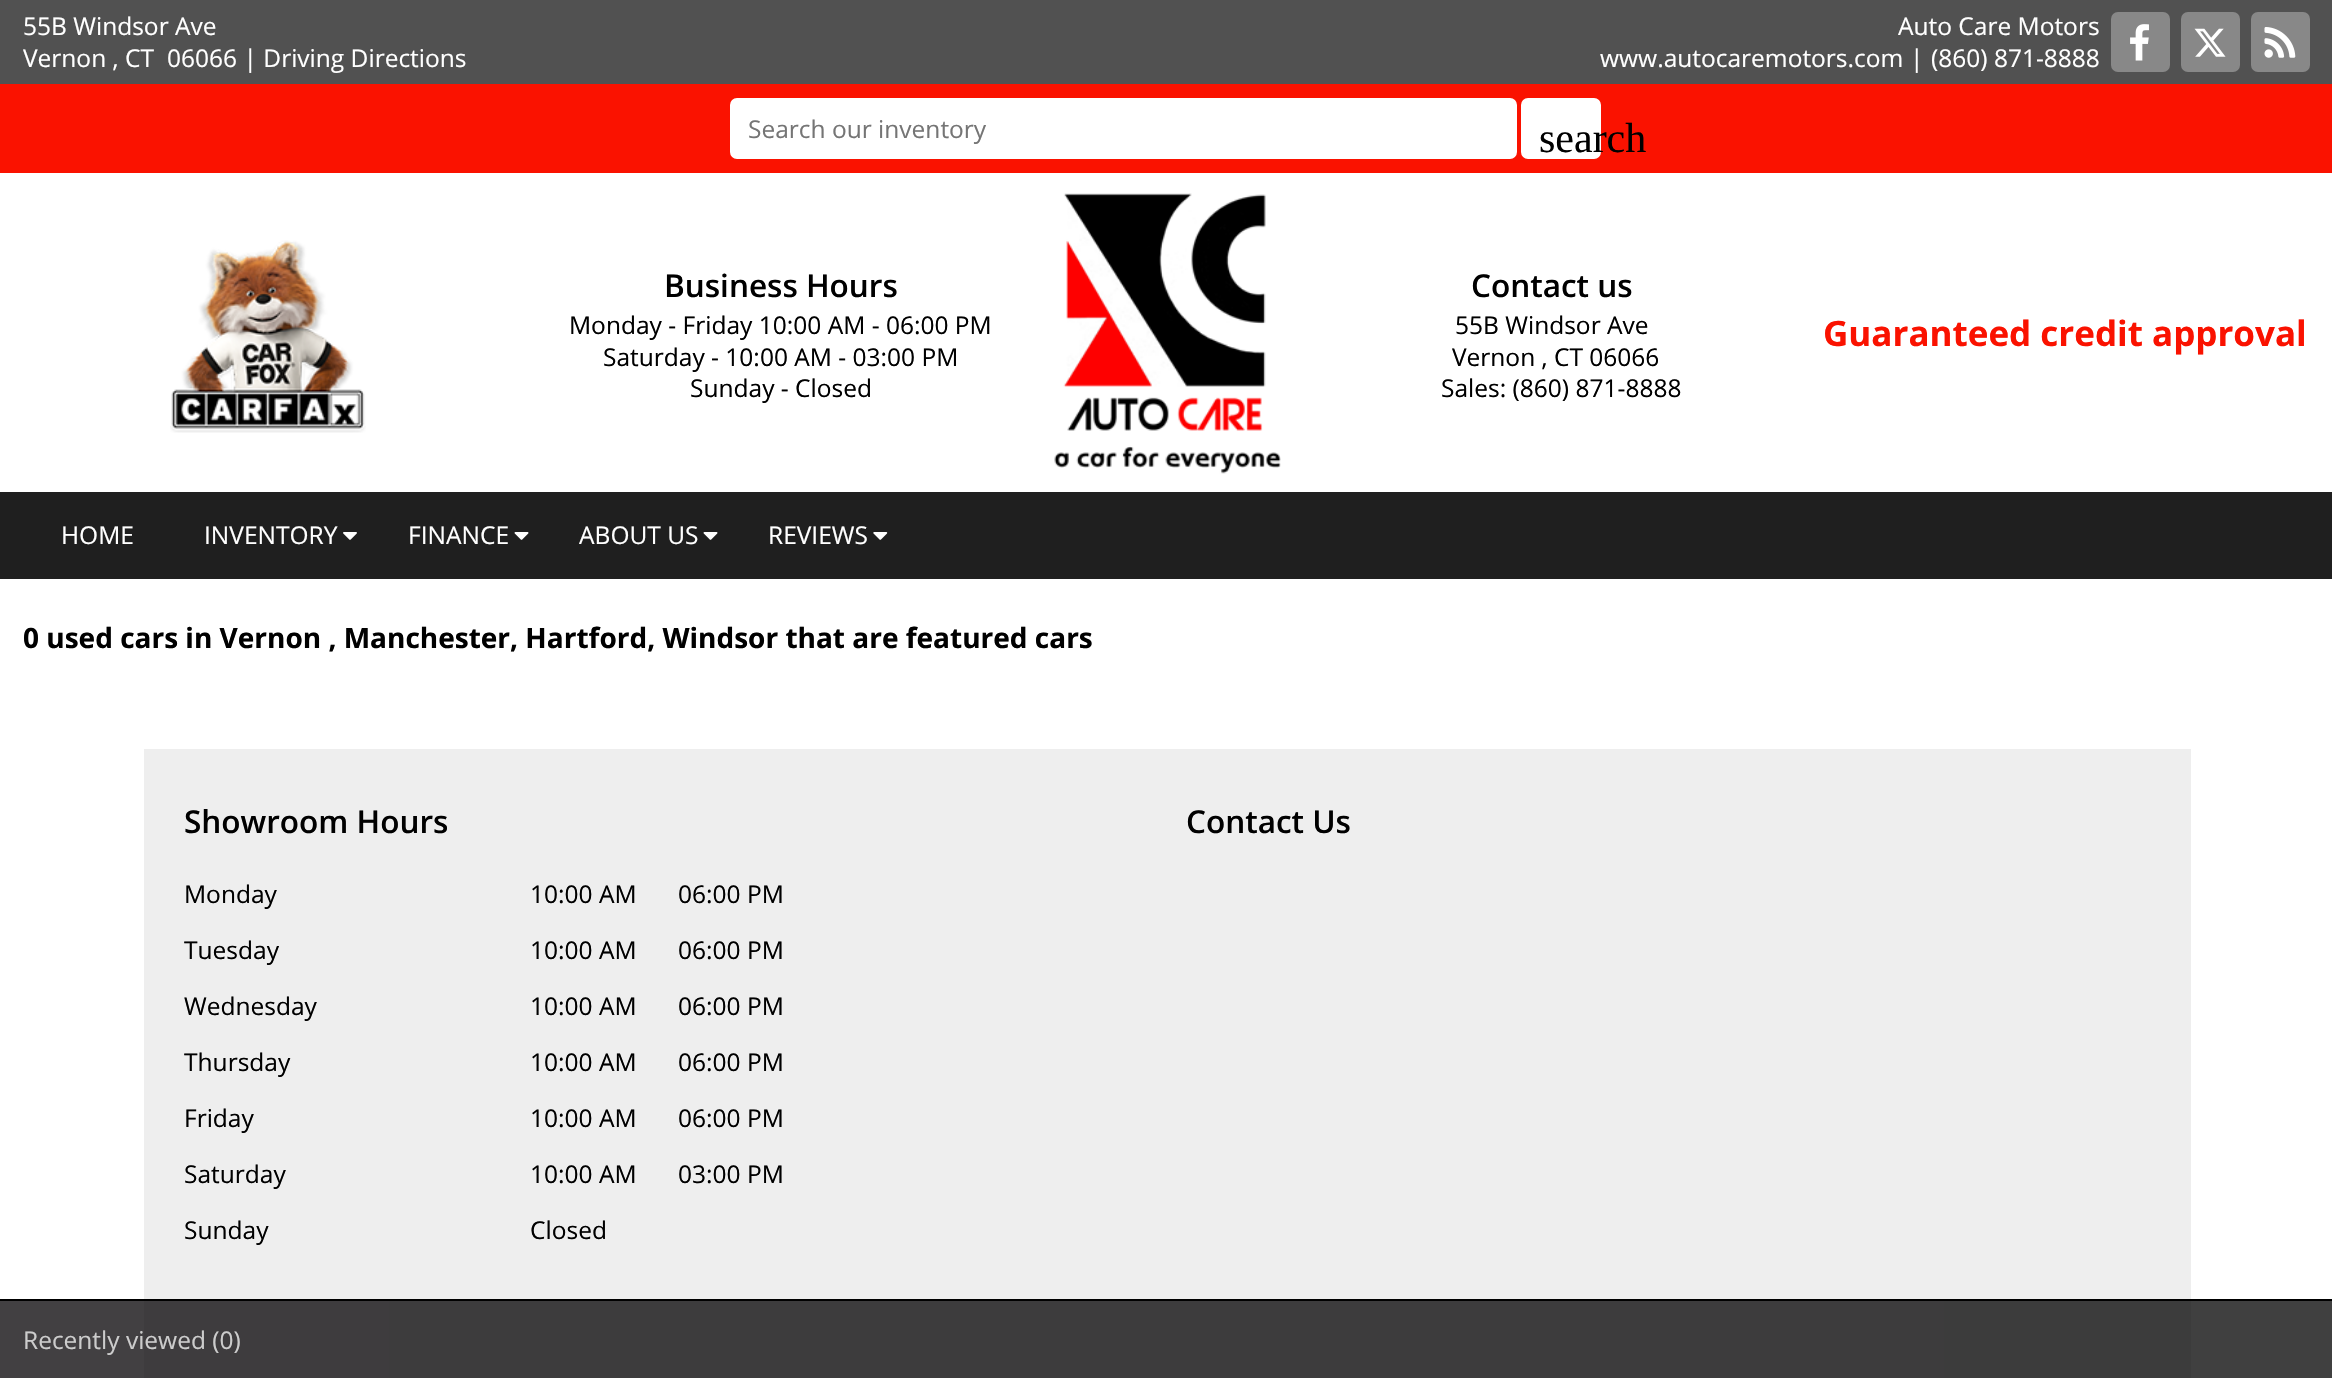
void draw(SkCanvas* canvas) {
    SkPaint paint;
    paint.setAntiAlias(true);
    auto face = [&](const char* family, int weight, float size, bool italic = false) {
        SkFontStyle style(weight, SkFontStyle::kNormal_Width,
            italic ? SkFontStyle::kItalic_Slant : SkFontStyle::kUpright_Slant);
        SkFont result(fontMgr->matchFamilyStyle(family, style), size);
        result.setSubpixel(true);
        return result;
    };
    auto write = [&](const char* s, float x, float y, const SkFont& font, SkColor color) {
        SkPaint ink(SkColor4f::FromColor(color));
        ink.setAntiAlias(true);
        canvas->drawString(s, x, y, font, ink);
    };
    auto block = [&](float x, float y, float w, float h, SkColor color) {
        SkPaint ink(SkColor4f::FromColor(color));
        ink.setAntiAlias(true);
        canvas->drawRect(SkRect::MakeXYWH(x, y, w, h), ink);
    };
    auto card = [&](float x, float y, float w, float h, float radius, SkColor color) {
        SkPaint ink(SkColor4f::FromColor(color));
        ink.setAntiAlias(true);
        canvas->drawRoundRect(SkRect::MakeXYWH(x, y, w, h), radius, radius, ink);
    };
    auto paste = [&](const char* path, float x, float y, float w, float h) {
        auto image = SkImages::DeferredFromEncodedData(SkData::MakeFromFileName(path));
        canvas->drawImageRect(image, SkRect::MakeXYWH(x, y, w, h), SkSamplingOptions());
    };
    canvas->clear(SK_ColorWHITE);
    block(0, 0, 2332, 84, SkColorSetRGB(81, 81, 81));
    auto kFont1 = face("Open Sans", 400, 24.5f);
    write("55B Windsor Ave", 23, 35, kFont1, SK_ColorWHITE);
    write("Vernon , CT", 23, 67, kFont1, SK_ColorWHITE);
    write("06066 | Driving Directions", 167, 67, kFont1, SK_ColorWHITE);
    write("Auto Care Motors", 1898, 35, kFont1, SK_ColorWHITE);
    write("www.autocaremotors.com", 1600, 67, kFont1, SK_ColorWHITE);
    write("|", 1910, 67, kFont1, SK_ColorWHITE);
    write("(860) 871-8888", 1931, 67, kFont1, SK_ColorWHITE);
    card(2111, 12, 59, 60, 7, SkColorSetRGB(136, 136, 136));
    paste("pic1.png", 2130, 24, 19, 37);
    card(2181, 12, 59, 60, 7, SkColorSetRGB(136, 136, 136));
    paste("pic2.png", 2194, 28, 32, 29);
    card(2251, 12, 59, 60, 7, SkColorSetRGB(136, 136, 136));
    paste("pic3.png", 2264, 27, 32, 31);
    block(0, 84, 2332, 89, SkColorSetRGB(250, 18, 0));
    paint.setColor(SK_ColorWHITE);
    canvas->drawRoundRect(SkRect::MakeXYWH(731, 99, 785, 59), 6, 6, paint);
    paint.setStyle(SkPaint::kStroke_Style);
    paint.setStrokeWidth(2);
    canvas->drawRoundRect(SkRect::MakeXYWH(731, 99, 785, 59), 6, 6, paint);
    write("Search our inventory", 748, 138, kFont1, SkColorSetRGB(117, 117, 117));
    paint.setStyle(SkPaint::kFill_Style);
    canvas->drawRoundRect(SkRect::MakeXYWH(1522, 99, 78, 59), 6, 6, paint);
    paint.setStyle(SkPaint::kStroke_Style);
    canvas->drawRoundRect(SkRect::MakeXYWH(1522, 99, 78, 59), 6, 6, paint);
    auto kFont2 = face("Liberation Serif", 400, 42);
    write("search", 1539, 152, kFont2, SK_ColorBLACK);
    paste("pic4.png", 170, 240, 196, 193);
    auto kFont3 = face("Open Sans", 600, 31.5f);
    write("Business Hours", 664, 297, kFont3, SK_ColorBLACK);
    write("Monday - Friday 10:00 AM - 06:00 PM", 569, 334, kFont1, SK_ColorBLACK);
    write("Saturday - 10:00 AM - 03:00 PM", 603, 366, kFont1, SK_ColorBLACK);
    write("Sunday - Closed", 690, 397, kFont1, SK_ColorBLACK);
    paste("pic5.png", 1054, 193, 227, 281);
    write("Contact us", 1471, 297, kFont3, SK_ColorBLACK);
    write("55B Windsor Ave", 1455, 334, kFont1, SK_ColorBLACK);
    write("Vernon , CT 06066", 1452, 366, kFont1, SK_ColorBLACK);
    write("Sales: (860) 871-8888", 1441, 397, kFont1, SK_ColorBLACK);
    auto kFont4 = face("Open Sans", 700, 35);
    write("Guaranteed credit approval", 1823, 346, kFont4, SkColorSetRGB(250, 18, 0));
    block(0, 492, 2332, 87, SkColorSetRGB(31, 31, 31));
    write("HOME", 61, 544, kFont1, SK_ColorWHITE);
    write("INVENTORY", 204, 544, kFont1, SK_ColorWHITE);
    paste("pic6.png", 343, 532, 14, 8);
    write("FINANCE", 408, 544, kFont1, SK_ColorWHITE);
    paste("pic7.png", 514, 532, 15, 8);
    write("ABOUT US", 579, 544, kFont1, SK_ColorWHITE);
    paste("pic7.png", 703, 532, 15, 8);
    write("REVIEWS", 768, 544, kFont1, SK_ColorWHITE);
    paste("pic8.png", 873, 532, 15, 8);
    auto kFont5 = face("Open Sans", 700, 28);
    write("0 used cars in Vernon , Manchester, Hartford, Windsor that are featured cars", 23, 648, kFont5, SK_ColorBLACK);
    block(144, 749, 2047, 629, SkColorSetRGB(238, 238, 238));
    write("Showroom Hours", 184, 833, kFont3, SK_ColorBLACK);
    write("Monday", 184, 903, kFont1, SK_ColorBLACK);
    write("10:00 AM", 530, 903, kFont1, SK_ColorBLACK);
    write("06:00 PM", 678, 903, kFont1, SK_ColorBLACK);
    write("Tuesday", 184, 959, kFont1, SK_ColorBLACK);
    write("10:00 AM", 530, 959, kFont1, SK_ColorBLACK);
    write("06:00 PM", 678, 959, kFont1, SK_ColorBLACK);
    write("Wednesday", 184, 1015, kFont1, SK_ColorBLACK);
    write("10:00 AM", 530, 1015, kFont1, SK_ColorBLACK);
    write("06:00 PM", 678, 1015, kFont1, SK_ColorBLACK);
    write("Thursday", 184, 1071, kFont1, SK_ColorBLACK);
    write("10:00 AM", 530, 1071, kFont1, SK_ColorBLACK);
    write("06:00 PM", 678, 1071, kFont1, SK_ColorBLACK);
    write("Friday", 184, 1127, kFont1, SK_ColorBLACK);
    write("10:00 AM", 530, 1127, kFont1, SK_ColorBLACK);
    write("06:00 PM", 678, 1127, kFont1, SK_ColorBLACK);
    write("Saturday", 184, 1183, kFont1, SK_ColorBLACK);
    write("10:00 AM", 530, 1183, kFont1, SK_ColorBLACK);
    write("03:00 PM", 678, 1183, kFont1, SK_ColorBLACK);
    write("Sunday", 184, 1239, kFont1, SK_ColorBLACK);
    write("Closed", 530, 1239, kFont1, SK_ColorBLACK);
    write("Contact Us", 1186, 833, kFont3, SK_ColorBLACK);
    paint.setStyle(SkPaint::kFill_Style);
    {
        const SkColor colors[] = {SkColorSetARGB(191, 3, 0, 3), SkColorSetARGB(191, 0, 0, 0)};
        const float stops[] = {0, 1};
        const SkPoint ends[] = {{0, 1340}, {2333, 1340}};
        paint.setShader(SkGradientShader::MakeLinear(ends, colors, stops, 2, SkTileMode::kClamp));
        paint.setAlpha(255);
    }
    canvas->drawRect(SkRect::MakeXYWH(0, 1301, 2332, 77), paint);
    block(0, 1299, 2332, 2, SK_ColorBLACK);
    write("Recently viewed (0)", 23, 1349, kFont1, SkColorSetRGB(204, 204, 204));
}
